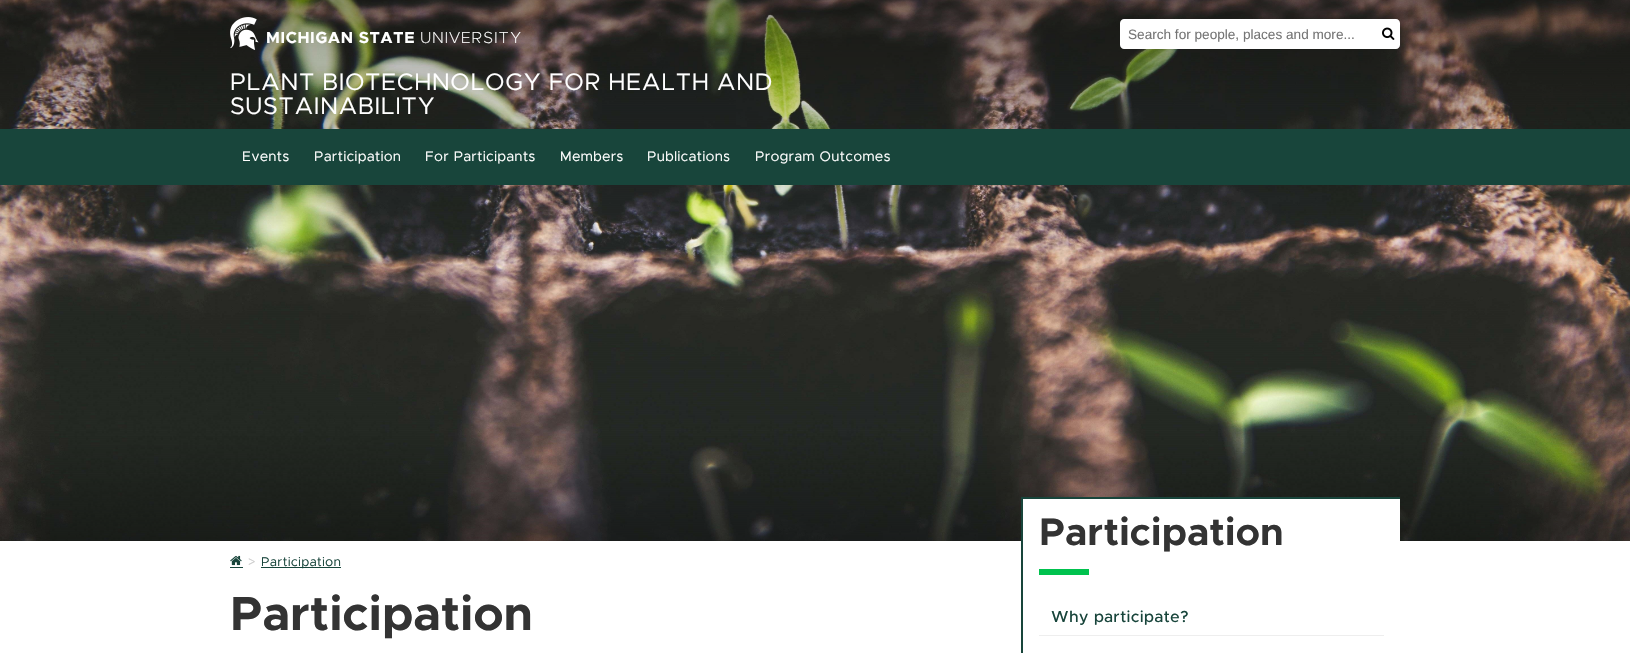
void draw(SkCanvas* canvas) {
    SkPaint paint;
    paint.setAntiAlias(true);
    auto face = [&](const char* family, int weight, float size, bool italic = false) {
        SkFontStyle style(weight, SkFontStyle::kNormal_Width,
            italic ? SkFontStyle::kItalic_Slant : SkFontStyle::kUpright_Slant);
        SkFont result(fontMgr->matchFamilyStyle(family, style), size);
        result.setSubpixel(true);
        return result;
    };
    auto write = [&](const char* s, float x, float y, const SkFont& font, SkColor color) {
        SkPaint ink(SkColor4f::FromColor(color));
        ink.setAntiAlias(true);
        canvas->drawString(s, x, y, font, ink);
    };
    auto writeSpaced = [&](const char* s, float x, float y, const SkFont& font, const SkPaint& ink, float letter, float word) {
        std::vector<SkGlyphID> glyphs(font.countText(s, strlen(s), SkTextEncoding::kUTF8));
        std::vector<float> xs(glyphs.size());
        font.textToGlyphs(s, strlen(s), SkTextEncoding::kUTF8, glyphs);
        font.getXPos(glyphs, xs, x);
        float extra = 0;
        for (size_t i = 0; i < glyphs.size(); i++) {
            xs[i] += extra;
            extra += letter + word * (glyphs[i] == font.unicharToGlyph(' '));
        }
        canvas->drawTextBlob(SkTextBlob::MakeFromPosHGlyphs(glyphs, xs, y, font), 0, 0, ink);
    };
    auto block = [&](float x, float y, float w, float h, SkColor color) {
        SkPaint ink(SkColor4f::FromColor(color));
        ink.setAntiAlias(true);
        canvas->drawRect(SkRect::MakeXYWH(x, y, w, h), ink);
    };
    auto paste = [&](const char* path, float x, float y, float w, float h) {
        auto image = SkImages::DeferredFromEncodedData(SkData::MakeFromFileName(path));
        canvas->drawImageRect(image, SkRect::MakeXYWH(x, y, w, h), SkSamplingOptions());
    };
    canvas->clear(SK_ColorWHITE);
    paste("pic1.png", 0, 0, 1630, 541);
    paste("pic2.png", 230, 17, 29, 33);
    auto kFont1 = face("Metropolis", 700, 16);
    paint.setColor(SK_ColorWHITE);
    writeSpaced("MICHIGAN STATE", 266, 43, kFont1, paint, 0.65f, 0);
    auto kFont2 = face("Metropolis", 200, 16);
    writeSpaced("UNIVERSITY", 420, 43, kFont2, paint, 0.65f, 0);
    canvas->drawPath(SkPathBuilder().moveTo(1124, 19).lineTo(1376, 19).lineTo(1376, 49).lineTo(1124, 49).cubicTo(1122, 49, 1120, 47, 1120, 45).lineTo(1120, 23).cubicTo(1120, 21, 1122, 19, 1124, 19).close().detach(), paint);
    auto kFont3 = face("Liberation Sans", 400, 13.6f);
    write("Search for people, places and more...", 1128, 39, kFont3, SkColorSetRGB(117, 117, 117));
    canvas->drawPath(SkPathBuilder().moveTo(1376, 19).lineTo(1396, 19).cubicTo(1398, 19, 1400, 21, 1400, 23).lineTo(1400, 45).cubicTo(1400, 47, 1398, 49, 1396, 49).lineTo(1376, 49).close().detach(), paint);
    paste("pic3.png", 1382, 27, 13, 13);
    auto kFont4 = face("Metropolis", 400, 24);
    writeSpaced("PLANT BIOTECHNOLOGY FOR HEALTH AND", 230, 90, kFont4, paint, 0.65f, 0);
    writeSpaced("SUSTAINABILITY", 230, 114, kFont4, paint, 0.65f, 0);
    block(0, 129, 1630, 56, SkColorSetRGB(24, 69, 59));
    auto kFont5 = face("Metropolis", 400, 14);
    writeSpaced("Events", 242, 161, kFont5, paint, 0.65f, 0);
    writeSpaced("Participation", 314, 161, kFont5, paint, 0.65f, 0);
    writeSpaced("For Participants", 425, 161, kFont5, paint, 0.65f, 0);
    writeSpaced("Members", 560, 161, kFont5, paint, 0.65f, 0);
    writeSpaced("Publications", 647, 161, kFont5, paint, 0.65f, 0);
    writeSpaced("Program Outcomes", 755, 161, kFont5, paint, 0.65f, 0);
    paste("pic4.png", 230, 555, 12, 11);
    block(230, 567, 13, 1, SkColorSetRGB(24, 69, 59));
    auto kFont6 = face("Metropolis", 400, 12.75f);
    paint.setColor(SkColorSetRGB(204, 204, 204));
    writeSpaced(">", 248, 566, kFont6, paint, 0.65f, 0);
    block(261, 567, 80, 1, SkColorSetRGB(24, 69, 59));
    paint.setColor(SkColorSetRGB(24, 69, 59));
    writeSpaced("Participation", 261, 566, kFont6, paint, 0.65f, 0);
    auto kFont7 = face("Metropolis", 700, 48);
    paint.setColor(SkColorSetRGB(51, 51, 51));
    writeSpaced("Participation", 230, 630, kFont7, paint, 0.65f, 0);
    block(1023, 499, 377, 42, SK_ColorWHITE);
    block(1021, 497, 379, 2, SkColorSetRGB(24, 69, 59));
    block(1021, 497, 2, 156, SkColorSetRGB(24, 69, 59));
    auto kFont8 = face("Metropolis", 700, 38.5f);
    writeSpaced("Participation", 1039, 545, kFont8, paint, 0.65f, 0);
    block(1039, 569, 50, 6, SkColorSetRGB(0, 194, 78));
    block(1039, 635, 345, 1, SkColorSetRGB(238, 238, 238));
    auto kFont9 = face("Metropolis", 500, 16);
    paint.setColor(SkColorSetRGB(24, 69, 59));
    writeSpaced("Why participate?", 1051, 622, kFont9, paint, 0.65f, 0);
}
